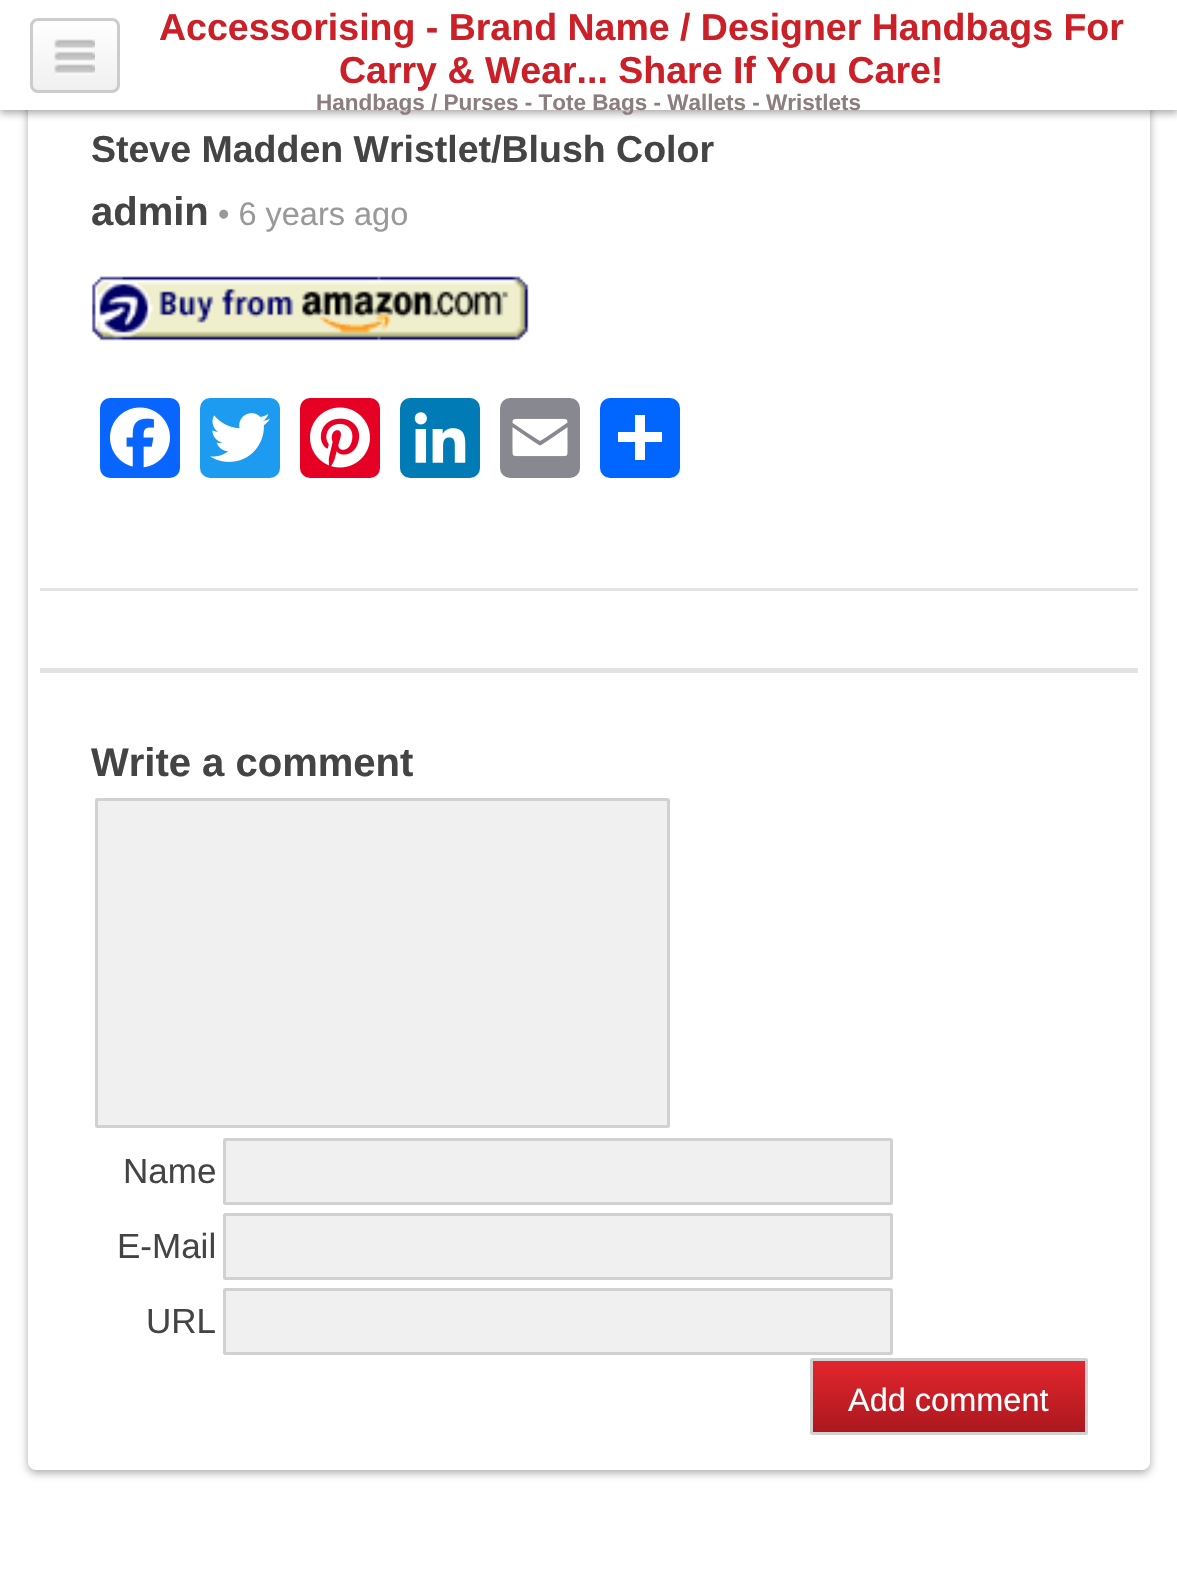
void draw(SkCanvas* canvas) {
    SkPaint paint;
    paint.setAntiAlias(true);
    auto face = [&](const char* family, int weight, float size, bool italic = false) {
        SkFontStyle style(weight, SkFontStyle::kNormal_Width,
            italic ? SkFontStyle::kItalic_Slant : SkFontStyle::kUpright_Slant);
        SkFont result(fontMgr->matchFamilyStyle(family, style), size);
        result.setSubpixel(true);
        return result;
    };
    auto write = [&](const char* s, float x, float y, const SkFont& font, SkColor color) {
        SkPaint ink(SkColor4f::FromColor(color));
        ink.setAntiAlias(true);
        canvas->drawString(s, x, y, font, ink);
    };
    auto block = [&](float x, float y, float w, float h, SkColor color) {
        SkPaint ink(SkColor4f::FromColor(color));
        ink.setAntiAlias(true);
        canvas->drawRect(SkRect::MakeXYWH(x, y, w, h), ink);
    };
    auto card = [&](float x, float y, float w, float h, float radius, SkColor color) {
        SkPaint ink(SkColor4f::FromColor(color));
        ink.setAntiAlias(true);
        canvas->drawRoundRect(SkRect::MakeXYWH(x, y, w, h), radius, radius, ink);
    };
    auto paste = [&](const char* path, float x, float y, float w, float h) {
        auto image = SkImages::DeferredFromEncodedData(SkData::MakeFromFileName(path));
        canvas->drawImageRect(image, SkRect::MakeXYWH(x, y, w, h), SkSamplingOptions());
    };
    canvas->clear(SK_ColorWHITE);
    paint.setColor(SkColorSetARGB(84, 0, 0, 0));
    paint.setMaskFilter(SkMaskFilter::MakeBlur(kNormal_SkBlurStyle, 4));
    canvas->drawRoundRect(SkRect::MakeXYWH(28, 63, 1122, 1410), 8, 8, paint);
    paint.setMaskFilter(nullptr);
    card(28, 60, 1122, 1410, 8, SK_ColorWHITE);
    paint.setColor(SkColorSetARGB(102, 34, 25, 25));
    paint.setMaskFilter(SkMaskFilter::MakeBlur(kNormal_SkBlurStyle, 4));
    canvas->drawRect(SkRect::MakeXYWH(0, 3, 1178, 110), paint);
    paint.setMaskFilter(nullptr);
    block(0, 0, 1177, 110, SK_ColorWHITE);
    canvas->save();
    canvas->clipPath(SkPathBuilder().moveTo(38, 18).lineTo(112, 18).cubicTo(116.5f, 18, 120, 21.5f, 120, 26).lineTo(120, 85).cubicTo(120, 89.5f, 116.5f, 93, 112, 93).lineTo(38, 93).cubicTo(33.5f, 93, 30, 89.5f, 30, 85).lineTo(30, 26).cubicTo(30, 21.5f, 33.5f, 18, 38, 18).close().detach(), true);
    {
        const SkColor colors[] = {SK_ColorWHITE, SkColorSetRGB(240, 240, 240)};
        const float stops[] = {0, 1};
        const SkPoint ends[] = {{75, 20}, {75, 90}};
        paint.setShader(SkGradientShader::MakeLinear(ends, colors, stops, 2, SkTileMode::kClamp));
        paint.setAlpha(255);
    }
    canvas->drawRect(SkRect::MakeXYWH(30, 20, 90, 70), paint);
    canvas->restore();
    paint.setStyle(SkPaint::kStroke_Style);
    paint.setStrokeWidth(3);
    paint.setShader(nullptr);
    paint.setColor(SkColorSetRGB(204, 204, 204));
    canvas->drawRoundRect(SkRect::MakeXYWH(31.5f, 19.5f, 87, 72), 6.5f, 6.5f, paint);
    paste("pic1.png", 54, 39, 41, 36);
    auto kFont1 = face("Liberation Sans", 700, 37.5f);
    write("Accessorising - Brand Name / Designer Handbags For", 159, 40, kFont1, SkColorSetRGB(203, 32, 39));
    write("Carry & Wear... Share If You Care!", 339, 83, kFont1, SkColorSetRGB(203, 32, 39));
    auto kFont2 = face("Liberation Sans", 700, 22.5f);
    write("Handbags / Purses - Tote Bags - Wallets - Wristlets", 316, 110, kFont2, SkColorSetRGB(140, 126, 126));
    write("Steve Madden Wristlet/Blush Color", 91, 162, kFont1, SkColorSetRGB(68, 68, 68));
    auto kFont3 = face("Liberation Sans", 700, 40);
    write("admin", 91, 225, kFont3, SkColorSetRGB(68, 68, 68));
    auto kFont4 = face("Liberation Sans", 400, 32.5f);
    write("• 6 years ago", 218, 225, kFont4, SkColorSetRGB(153, 153, 153));
    paste("pic2.png", 91, 276, 438, 65);
    card(100, 398, 80, 80, 10, SkColorSetRGB(8, 102, 255));
    paste("pic3.png", 110, 407, 60, 61);
    card(200, 398, 80, 80, 10, SkColorSetRGB(29, 155, 240));
    paste("pic4.png", 210, 413, 60, 49);
    card(300, 398, 80, 80, 10, SkColorSetRGB(230, 0, 35));
    paste("pic5.png", 310, 407, 60, 61);
    card(400, 398, 80, 80, 10, SkColorSetRGB(0, 123, 181));
    paste("pic6.png", 414, 412, 52, 51);
    card(500, 398, 80, 80, 10, SkColorSetRGB(136, 137, 144));
    paste("pic7.png", 512, 418, 56, 39);
    card(600, 398, 80, 80, 10, SkColorSetRGB(1, 102, 255));
    block(635, 415, 10, 45, SK_ColorWHITE);
    block(618, 432, 44, 10, SK_ColorWHITE);
    block(40, 588, 1098, 3, SkColorSetRGB(227, 227, 227));
    block(40, 668, 1098, 5, SkColorSetRGB(227, 227, 227));
    write("Write a comment", 91, 776, kFont3, SkColorSetRGB(68, 68, 68));
    paint.setStyle(SkPaint::kFill_Style);
    paint.setColor(SkColorSetRGB(240, 240, 240));
    canvas->drawRoundRect(SkRect::MakeXYWH(96.5f, 799.5f, 572, 327), 1, 1, paint);
    paint.setStyle(SkPaint::kStroke_Style);
    paint.setColor(SkColorSetRGB(209, 209, 209));
    canvas->drawRoundRect(SkRect::MakeXYWH(96.5f, 799.5f, 572, 327), 1, 1, paint);
    auto kFont5 = face("Liberation Sans", 400, 35);
    write("Name", 123, 1183, kFont5, SkColorSetRGB(68, 68, 68));
    paint.setStyle(SkPaint::kFill_Style);
    paint.setColor(SkColorSetRGB(240, 240, 240));
    canvas->drawRoundRect(SkRect::MakeXYWH(224.5f, 1139.5f, 667, 64), 1, 1, paint);
    paint.setStyle(SkPaint::kStroke_Style);
    paint.setColor(SkColorSetRGB(209, 209, 209));
    canvas->drawRoundRect(SkRect::MakeXYWH(224.5f, 1139.5f, 667, 64), 1, 1, paint);
    write("E-Mail", 117, 1258, kFont5, SkColorSetRGB(68, 68, 68));
    paint.setStyle(SkPaint::kFill_Style);
    paint.setColor(SkColorSetRGB(240, 240, 240));
    canvas->drawRoundRect(SkRect::MakeXYWH(224.5f, 1214.5f, 667, 64), 1, 1, paint);
    paint.setStyle(SkPaint::kStroke_Style);
    paint.setColor(SkColorSetRGB(209, 209, 209));
    canvas->drawRoundRect(SkRect::MakeXYWH(224.5f, 1214.5f, 667, 64), 1, 1, paint);
    write("URL", 146, 1333, kFont5, SkColorSetRGB(68, 68, 68));
    paint.setStyle(SkPaint::kFill_Style);
    paint.setColor(SkColorSetRGB(240, 240, 240));
    canvas->drawRoundRect(SkRect::MakeXYWH(224.5f, 1289.5f, 667, 64), 1, 1, paint);
    paint.setStyle(SkPaint::kStroke_Style);
    paint.setColor(SkColorSetRGB(209, 209, 209));
    canvas->drawRoundRect(SkRect::MakeXYWH(224.5f, 1289.5f, 667, 64), 1, 1, paint);
    paint.setStyle(SkPaint::kFill_Style);
    {
        const SkColor colors[] = {SkColorSetRGB(227, 38, 46), SkColorSetRGB(171, 23, 30)};
        const float stops[] = {0, 1};
        const SkPoint ends[] = {{949, 1360}, {949, 1433}};
        paint.setShader(SkGradientShader::MakeLinear(ends, colors, stops, 2, SkTileMode::kClamp));
        paint.setAlpha(255);
    }
    canvas->drawRect(SkRect::MakeXYWH(810, 1360, 278, 73), paint);
    paint.setStyle(SkPaint::kStroke_Style);
    paint.setShader(nullptr);
    paint.setColor(SkColorSetRGB(209, 209, 209));
    canvas->drawRoundRect(SkRect::MakeXYWH(811.5f, 1359.5f, 275, 74), 1, 1, paint);
    write("Add comment", 848, 1411, kFont4, SK_ColorWHITE);
}
